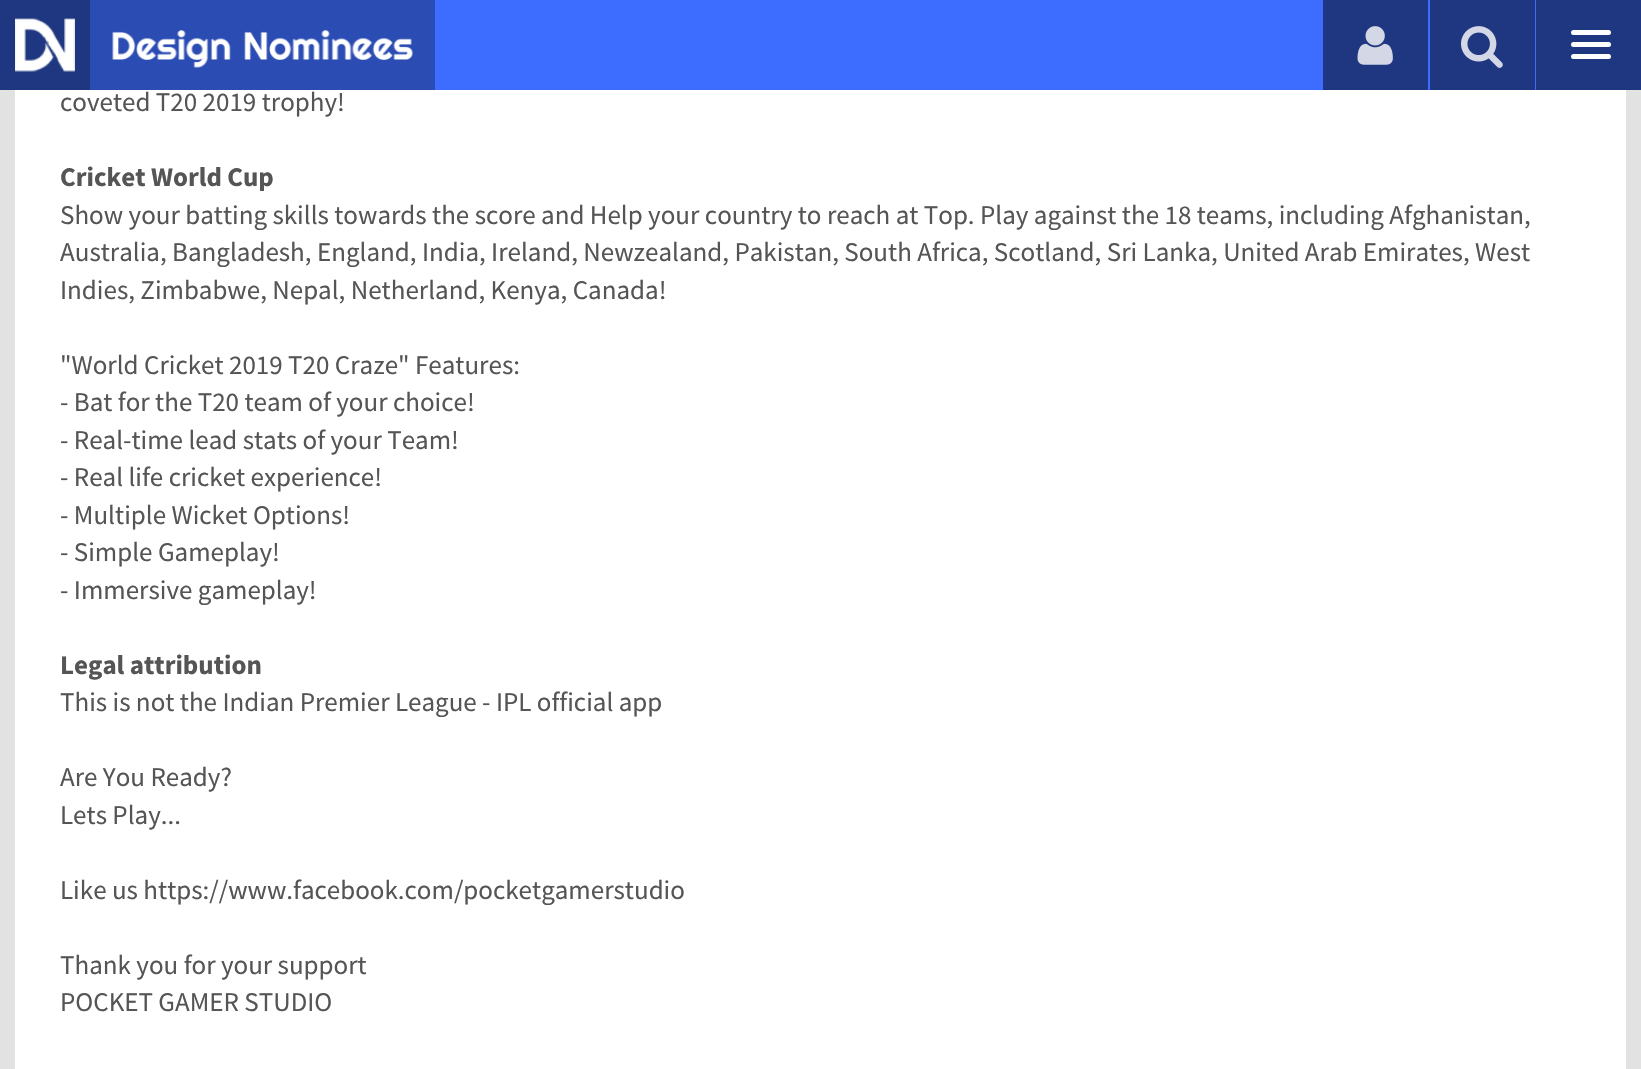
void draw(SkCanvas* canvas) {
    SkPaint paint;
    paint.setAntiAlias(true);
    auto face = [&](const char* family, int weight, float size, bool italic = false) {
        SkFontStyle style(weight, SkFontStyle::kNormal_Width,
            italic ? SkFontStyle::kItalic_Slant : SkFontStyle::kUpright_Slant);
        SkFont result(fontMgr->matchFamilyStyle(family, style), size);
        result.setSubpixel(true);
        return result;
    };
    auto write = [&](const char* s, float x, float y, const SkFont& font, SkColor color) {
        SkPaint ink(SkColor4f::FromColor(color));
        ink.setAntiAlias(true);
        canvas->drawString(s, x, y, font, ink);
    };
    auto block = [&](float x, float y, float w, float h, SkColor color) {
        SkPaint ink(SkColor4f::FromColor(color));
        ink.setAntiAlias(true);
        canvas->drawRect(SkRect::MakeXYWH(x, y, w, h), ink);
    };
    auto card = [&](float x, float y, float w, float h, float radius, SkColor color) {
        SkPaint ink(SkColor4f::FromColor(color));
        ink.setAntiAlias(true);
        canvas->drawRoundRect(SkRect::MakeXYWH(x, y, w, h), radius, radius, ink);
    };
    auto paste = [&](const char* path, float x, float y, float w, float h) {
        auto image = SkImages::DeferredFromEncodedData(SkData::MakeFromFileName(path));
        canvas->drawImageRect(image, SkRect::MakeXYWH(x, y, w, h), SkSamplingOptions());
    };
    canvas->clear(SkColorSetRGB(226, 226, 226));
    block(435, 0, 1101, 90, SkColorSetRGB(61, 109, 255));
    block(0, 0, 90, 90, SkColorSetRGB(31, 55, 128));
    paste("pic1.png", 15, 18, 60, 54);
    block(90, 0, 345, 90, SkColorSetRGB(43, 76, 179));
    paste("pic2.png", 112, 30, 301, 38);
    block(1323, 0, 105, 90, SkColorSetRGB(31, 55, 128));
    paste("pic3.png", 1357, 26, 36, 39);
    block(1430, 0, 105, 90, SkColorSetRGB(31, 55, 128));
    paste("pic4.png", 1461, 26, 42, 42);
    block(1536, 0, 105, 90, SkColorSetRGB(31, 55, 128));
    card(1571, 30, 40, 5, 2.5f, SK_ColorWHITE);
    card(1571, 42, 40, 5, 2.5f, SK_ColorWHITE);
    card(1571, 54, 40, 5, 2.5f, SK_ColorWHITE);
    block(15, 90, 1611, 979, SK_ColorWHITE);
    auto kFont1 = face("Source Sans Pro", 400, 27);
    write("coveted T20 2019 trophy!", 60, 111, kFont1, SkColorSetRGB(85, 85, 85));
    auto kFont2 = face("Source Sans Pro", 700, 27);
    write("Cricket World Cup", 60, 186, kFont2, SkColorSetRGB(85, 85, 85));
    write("Show your batting skills towards the score and Help your country to reach at Top. Play against the 18 teams, including Afghanistan,", 60, 224, kFont1, SkColorSetRGB(85, 85, 85));
    write("Australia, Bangladesh, England, India, Ireland, Newzealand, Pakistan, South Africa, Scotland, Sri Lanka, United Arab Emirates, West", 60, 261, kFont1, SkColorSetRGB(85, 85, 85));
    write("Indies, Zimbabwe, Nepal, Netherland, Kenya, Canada!", 60, 299, kFont1, SkColorSetRGB(85, 85, 85));
    write("\"World Cricket 2019 T20 Craze\" Features:", 60, 374, kFont1, SkColorSetRGB(85, 85, 85));
    write("- Bat for the T20 team of your choice!", 60, 411, kFont1, SkColorSetRGB(85, 85, 85));
    write("- Real-time lead stats of your Team!", 60, 449, kFont1, SkColorSetRGB(85, 85, 85));
    write("- Real life cricket experience!", 60, 486, kFont1, SkColorSetRGB(85, 85, 85));
    write("- Multiple Wicket Options!", 60, 524, kFont1, SkColorSetRGB(85, 85, 85));
    write("- Simple Gameplay!", 60, 561, kFont1, SkColorSetRGB(85, 85, 85));
    write("- Immersive gameplay!", 60, 599, kFont1, SkColorSetRGB(85, 85, 85));
    write("Legal attribution", 60, 674, kFont2, SkColorSetRGB(85, 85, 85));
    write("This is not the Indian Premier League - IPL official app", 60, 711, kFont1, SkColorSetRGB(85, 85, 85));
    write("Are You Ready?", 60, 786, kFont1, SkColorSetRGB(85, 85, 85));
    write("Lets Play...", 60, 824, kFont1, SkColorSetRGB(85, 85, 85));
    write("Like us https://www.facebook.com/pocketgamerstudio", 60, 899, kFont1, SkColorSetRGB(85, 85, 85));
    write("Thank you for your support", 60, 974, kFont1, SkColorSetRGB(85, 85, 85));
    write("POCKET GAMER STUDIO", 60, 1011, kFont1, SkColorSetRGB(85, 85, 85));
}
